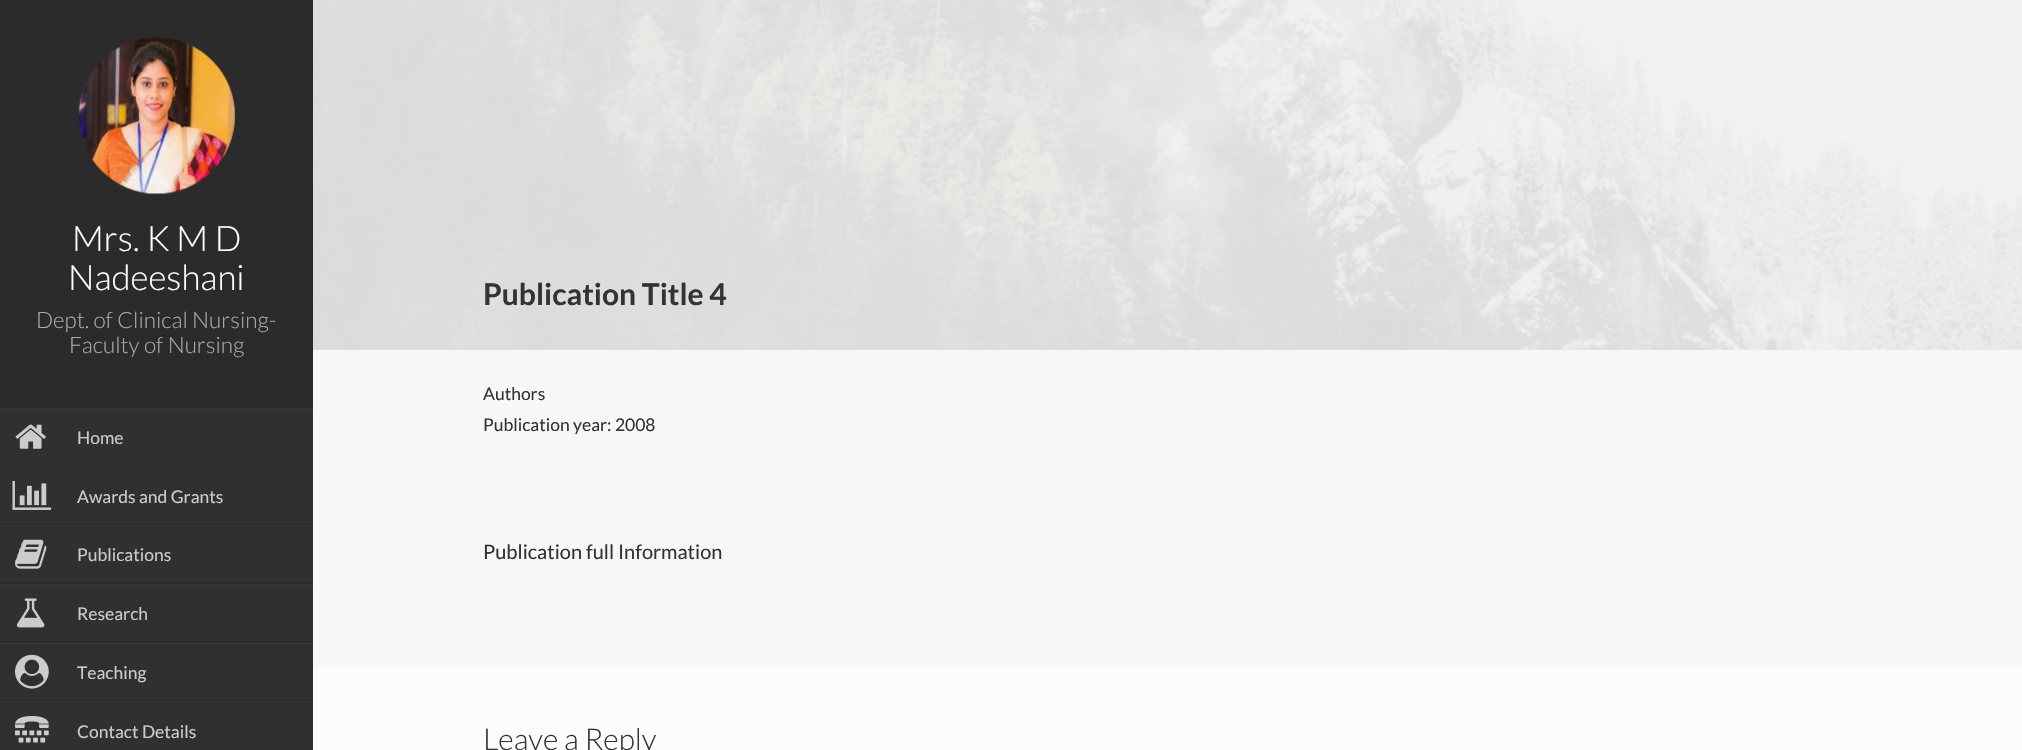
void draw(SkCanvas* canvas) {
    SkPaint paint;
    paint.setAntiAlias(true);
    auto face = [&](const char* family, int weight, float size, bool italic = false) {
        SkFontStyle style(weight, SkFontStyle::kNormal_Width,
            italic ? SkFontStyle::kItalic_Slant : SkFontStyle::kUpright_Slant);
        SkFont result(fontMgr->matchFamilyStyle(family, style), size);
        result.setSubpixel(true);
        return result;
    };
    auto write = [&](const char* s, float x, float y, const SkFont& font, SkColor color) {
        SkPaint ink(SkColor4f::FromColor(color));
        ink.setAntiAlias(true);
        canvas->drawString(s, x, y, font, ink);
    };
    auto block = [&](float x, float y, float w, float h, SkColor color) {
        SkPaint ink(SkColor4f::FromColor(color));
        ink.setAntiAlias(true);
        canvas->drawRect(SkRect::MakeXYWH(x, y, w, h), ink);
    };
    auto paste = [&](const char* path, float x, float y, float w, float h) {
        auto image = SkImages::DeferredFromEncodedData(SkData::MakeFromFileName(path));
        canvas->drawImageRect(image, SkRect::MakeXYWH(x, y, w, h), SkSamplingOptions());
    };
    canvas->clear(SkColorSetRGB(43, 43, 43));
    paste("pic1.png", 78, 37, 158, 158);
    auto kFont1 = face("Lato", 300, 35);
    write("Mrs. K M D", 72, 251, kFont1, SK_ColorWHITE);
    write("Nadeeshani", 68, 290, kFont1, SK_ColorWHITE);
    auto kFont2 = face("Lato", 300, 22.5f);
    write("Dept. of Clinical Nursing-", 36, 328, kFont2, SkColorSetRGB(170, 170, 170));
    write("Faculty of Nursing", 69, 353, kFont2, SkColorSetRGB(170, 170, 170));
    block(0, 409, 313, 56, SkColorSetRGB(48, 48, 48));
    block(0, 408, 313, 1, SkColorSetRGB(55, 55, 55));
    paste("pic2.png", 15, 424, 31, 25);
    auto kFont3 = face("Lato", 400, 17.5f);
    write("Home", 77, 444, kFont3, SkColorSetRGB(204, 204, 204));
    block(0, 467, 313, 57, SkColorSetRGB(48, 48, 48));
    block(0, 466, 313, 1, SkColorSetRGB(55, 55, 55));
    paste("pic3.png", 12, 481, 40, 29);
    write("Awards and Grants", 77, 503, kFont3, SkColorSetRGB(204, 204, 204));
    block(0, 526, 313, 57, SkColorSetRGB(48, 48, 48));
    block(0, 525, 313, 1, SkColorSetRGB(55, 55, 55));
    paste("pic4.png", 15, 539, 32, 30);
    write("Publications", 77, 561, kFont3, SkColorSetRGB(204, 204, 204));
    block(0, 585, 313, 58, SkColorSetRGB(48, 48, 48));
    block(0, 584, 313, 1, SkColorSetRGB(55, 55, 55));
    block(0, 641, 313, 1, SkColorSetRGB(43, 43, 43));
    paste("pic5.png", 16, 598, 29, 30);
    write("Research", 77, 620, kFont3, SkColorSetRGB(204, 204, 204));
    block(0, 644, 313, 56, SkColorSetRGB(48, 48, 48));
    block(0, 643, 313, 1, SkColorSetRGB(55, 55, 55));
    paste("pic6.png", 15, 654, 34, 35);
    write("Teaching", 77, 679, kFont3, SkColorSetRGB(204, 204, 204));
    block(0, 702, 313, 48, SkColorSetRGB(48, 48, 48));
    block(0, 701, 313, 1, SkColorSetRGB(55, 55, 55));
    paste("pic7.png", 15, 716, 34, 27);
    write("Contact Details", 77, 738, kFont3, SkColorSetRGB(204, 204, 204));
    block(313, 350, 1709, 316, SkColorSetRGB(247, 247, 247));
    paste("pic8.png", 312, 0, 1710, 350);
    auto kFont4 = face("Lato", 700, 30);
    write("Publication Title 4", 483, 305, kFont4, SkColorSetRGB(51, 51, 51));
    write("Authors", 483, 400, kFont3, SkColorSetRGB(51, 51, 51));
    write("Publication year: 2008", 483, 431, kFont3, SkColorSetRGB(51, 51, 51));
    auto kFont5 = face("Lato", 400, 20);
    write("Publication full Information", 483, 559, kFont5, SkColorSetRGB(51, 51, 51));
    block(313, 666, 1709, 84, SkColorSetRGB(252, 252, 252));
    auto kFont6 = face("Lato", 300, 30);
    write("Leave a Reply", 483, 750, kFont6, SkColorSetRGB(51, 51, 51));
}
